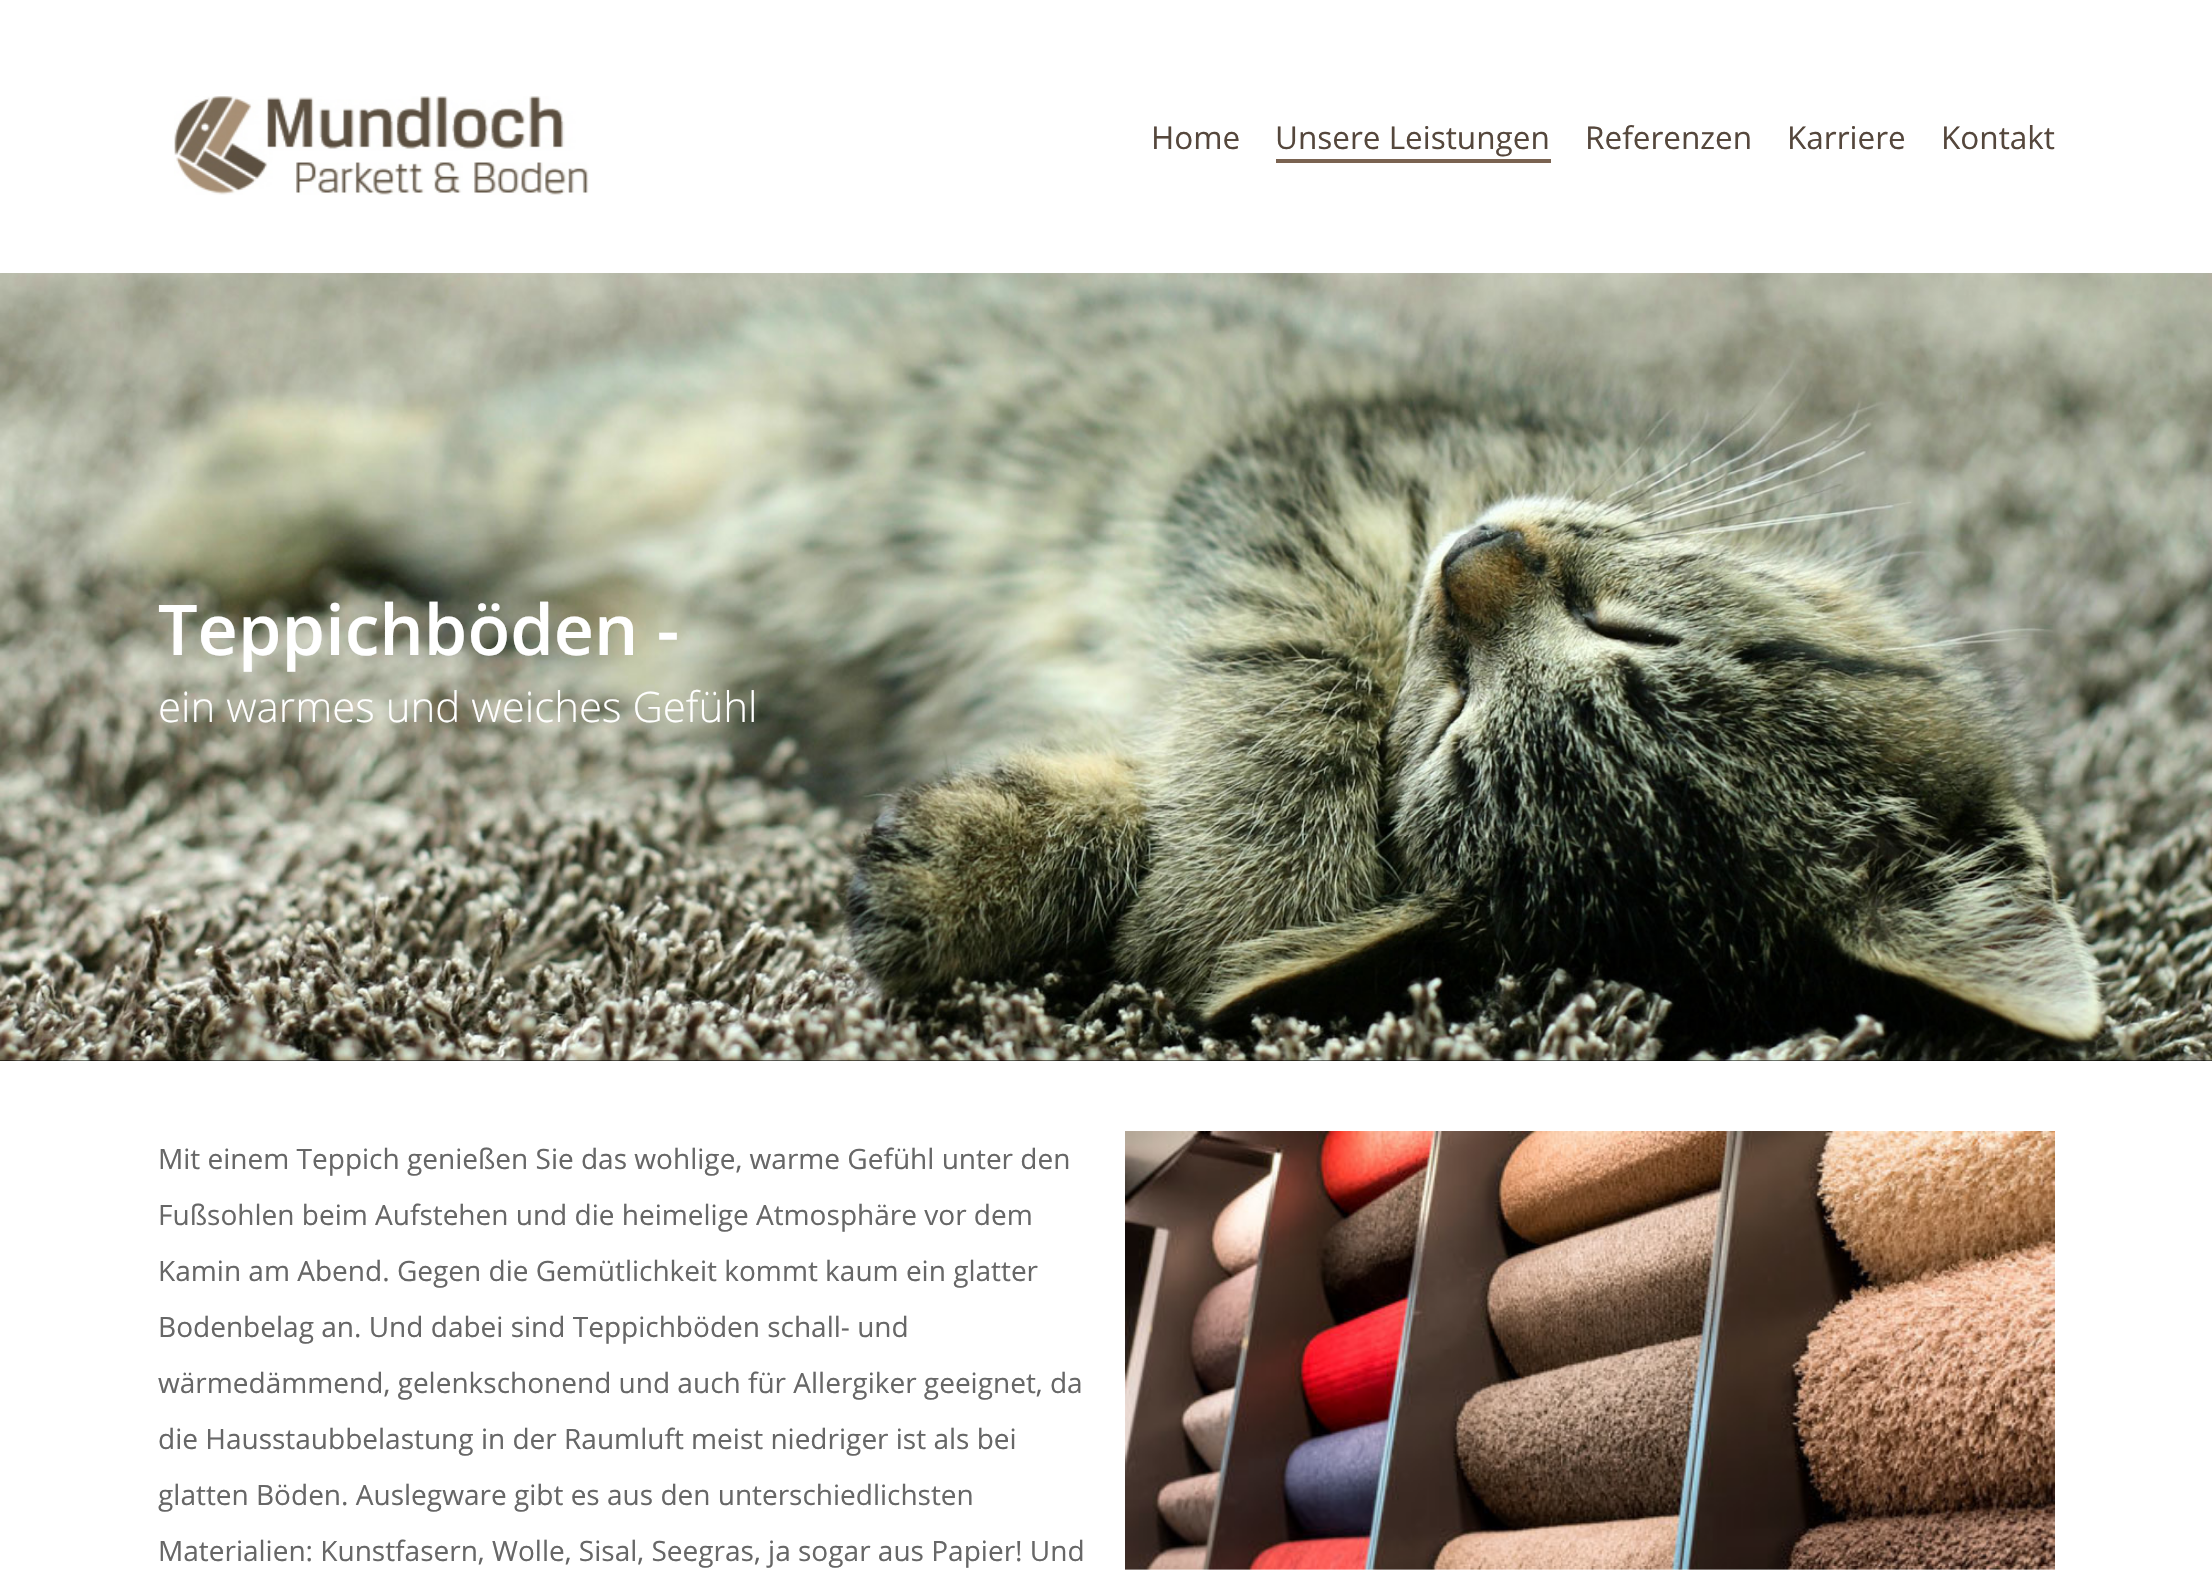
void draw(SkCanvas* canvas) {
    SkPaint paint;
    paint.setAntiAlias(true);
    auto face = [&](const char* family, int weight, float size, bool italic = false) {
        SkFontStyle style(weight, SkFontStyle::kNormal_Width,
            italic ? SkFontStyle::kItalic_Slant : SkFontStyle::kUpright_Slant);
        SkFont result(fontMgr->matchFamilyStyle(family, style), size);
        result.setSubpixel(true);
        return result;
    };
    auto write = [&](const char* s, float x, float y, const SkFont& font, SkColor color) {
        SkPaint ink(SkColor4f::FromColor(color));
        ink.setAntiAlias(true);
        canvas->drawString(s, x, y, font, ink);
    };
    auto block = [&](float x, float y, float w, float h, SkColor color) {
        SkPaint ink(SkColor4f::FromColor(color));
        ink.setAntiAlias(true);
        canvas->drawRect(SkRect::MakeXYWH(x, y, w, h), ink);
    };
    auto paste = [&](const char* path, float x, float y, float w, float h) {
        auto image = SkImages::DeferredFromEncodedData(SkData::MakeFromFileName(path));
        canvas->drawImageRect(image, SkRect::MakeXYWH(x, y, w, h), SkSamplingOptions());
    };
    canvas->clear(SK_ColorWHITE);
    paste("pic1.png", 174, 96, 415, 99);
    auto kFont1 = face("Open Sans", 400, 31.5f);
    write("Home", 1151, 149, kFont1, SkColorSetRGB(85, 71, 60));
    write("Unsere Leistungen", 1275, 149, kFont1, SkColorSetRGB(85, 71, 60));
    block(1276, 159, 275, 4, SkColorSetRGB(122, 99, 81));
    write("Referenzen", 1585, 149, kFont1, SkColorSetRGB(85, 71, 60));
    write("Karriere", 1787, 149, kFont1, SkColorSetRGB(85, 71, 60));
    write("Kontakt", 1941, 149, kFont1, SkColorSetRGB(85, 71, 60));
    block(0, 1060, 2212, 1, SK_ColorBLACK);
    paste("pic2.png", 0, 273, 2212, 788);
    auto kFont2 = face("Open Sans", 600, 70);
    write("Teppichböden -", 158, 655, kFont2, SK_ColorWHITE);
    auto kFont3 = face("Open Sans", 300, 42);
    write("ein warmes und weiches Gefühl", 158, 722, kFont3, SK_ColorWHITE);
    auto kFont4 = face("Open Sans", 400, 28);
    write("Mit einem Teppich genießen Sie das wohlige, warme Gefühl unter den", 158, 1169, kFont4, SkColorSetRGB(103, 103, 103));
    write("Fußsohlen beim Aufstehen und die heimelige Atmosphäre vor dem", 158, 1225, kFont4, SkColorSetRGB(103, 103, 103));
    write("Kamin am Abend. Gegen die Gemütlichkeit kommt kaum ein glatter", 158, 1281, kFont4, SkColorSetRGB(103, 103, 103));
    write("Bodenbelag an. Und dabei sind Teppichböden schall- und", 158, 1337, kFont4, SkColorSetRGB(103, 103, 103));
    write("wärmedämmend, gelenkschonend und auch für Allergiker geeignet, da", 158, 1393, kFont4, SkColorSetRGB(103, 103, 103));
    write("die Hausstaubbelastung in der Raumluft meist niedriger ist als bei", 158, 1449, kFont4, SkColorSetRGB(103, 103, 103));
    write("glatten Böden. Auslegware gibt es aus den unterschiedlichsten", 158, 1505, kFont4, SkColorSetRGB(103, 103, 103));
    write("Materialien: Kunstfasern, Wolle, Sisal, Seegras, ja sogar aus Papier! Und", 158, 1561, kFont4, SkColorSetRGB(103, 103, 103));
    paste("pic3.png", 1125, 1131, 930, 439);
}
